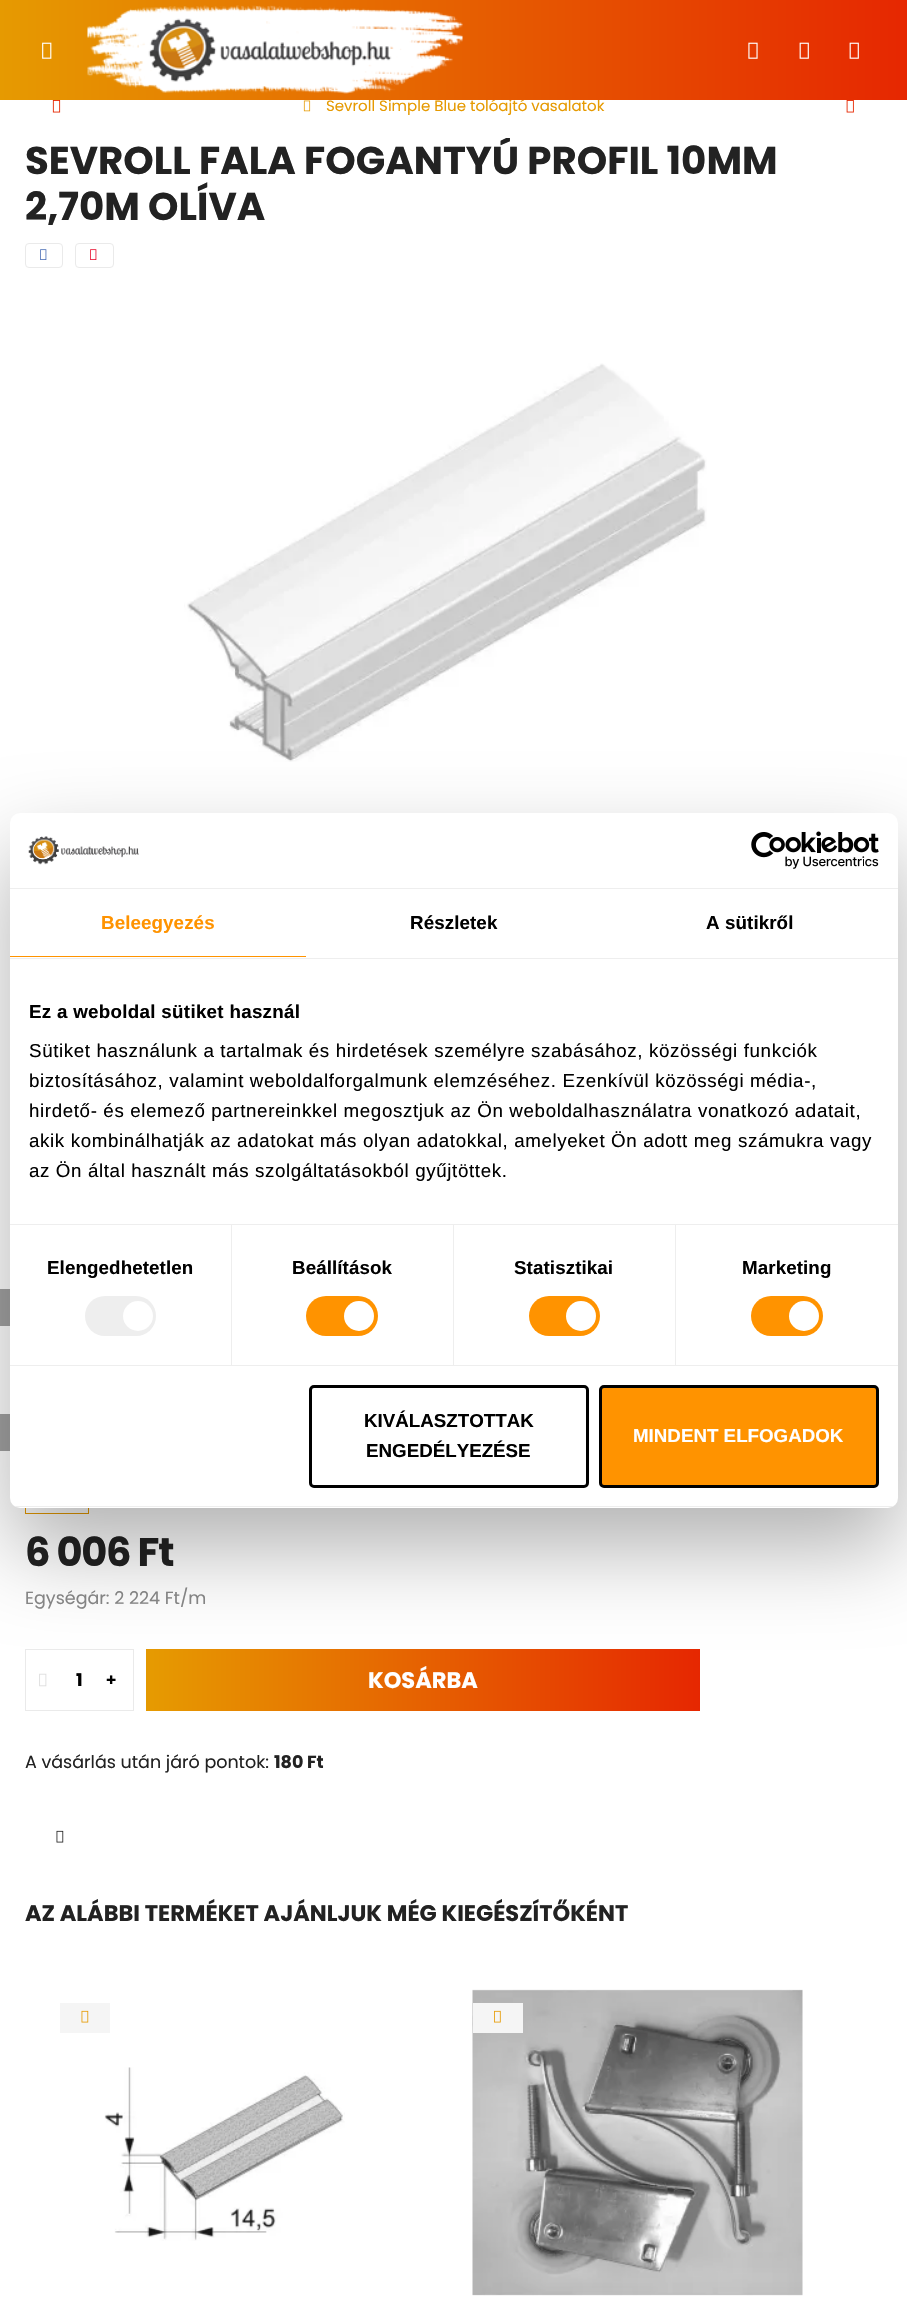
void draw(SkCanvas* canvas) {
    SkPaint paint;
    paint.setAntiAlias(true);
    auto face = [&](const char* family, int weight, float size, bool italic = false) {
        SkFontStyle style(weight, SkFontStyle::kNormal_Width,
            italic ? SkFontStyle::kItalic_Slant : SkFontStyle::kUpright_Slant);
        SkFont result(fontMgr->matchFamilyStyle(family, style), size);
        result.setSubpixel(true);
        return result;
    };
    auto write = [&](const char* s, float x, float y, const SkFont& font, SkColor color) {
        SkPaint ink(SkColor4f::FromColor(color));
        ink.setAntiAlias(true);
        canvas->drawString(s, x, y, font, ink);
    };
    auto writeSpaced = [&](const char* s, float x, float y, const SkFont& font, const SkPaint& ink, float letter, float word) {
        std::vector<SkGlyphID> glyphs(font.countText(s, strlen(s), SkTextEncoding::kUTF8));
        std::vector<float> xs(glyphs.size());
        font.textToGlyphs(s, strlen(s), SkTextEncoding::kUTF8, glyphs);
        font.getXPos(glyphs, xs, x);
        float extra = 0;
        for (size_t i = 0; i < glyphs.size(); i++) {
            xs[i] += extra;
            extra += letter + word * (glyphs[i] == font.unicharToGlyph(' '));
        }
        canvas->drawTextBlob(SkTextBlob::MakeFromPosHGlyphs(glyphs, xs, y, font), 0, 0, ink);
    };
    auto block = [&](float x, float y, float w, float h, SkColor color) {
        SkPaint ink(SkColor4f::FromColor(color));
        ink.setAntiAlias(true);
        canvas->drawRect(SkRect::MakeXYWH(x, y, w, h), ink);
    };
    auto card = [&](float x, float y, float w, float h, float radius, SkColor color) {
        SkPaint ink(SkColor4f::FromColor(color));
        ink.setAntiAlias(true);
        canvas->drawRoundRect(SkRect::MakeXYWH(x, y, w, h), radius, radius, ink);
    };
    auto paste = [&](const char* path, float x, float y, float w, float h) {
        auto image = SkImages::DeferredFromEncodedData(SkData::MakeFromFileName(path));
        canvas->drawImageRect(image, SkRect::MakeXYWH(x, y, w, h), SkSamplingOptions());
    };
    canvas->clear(SK_ColorWHITE);
    auto kFont1 = face("Poppins", 400, 15);
    write("Sevroll Simple Blue tolóajtó vasalatok", 326, 111, kFont1, SkColorSetRGB(230, 154, 1));
    {
        const SkColor colors[] = {SkColorSetRGB(230, 154, 1), SkColorSetRGB(230, 39, 1)};
        const float stops[] = {0, 1};
        const SkPoint ends[] = {{0, 50}, {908, 50}};
        paint.setShader(SkGradientShader::MakeLinear(ends, colors, stops, 2, SkTileMode::kClamp));
        paint.setAlpha(255);
    }
    canvas->drawRect(SkRect::MakeXYWH(0, 0, 907, 100), paint);
    paste("pic1.png", 42, 42, 10, 17);
    paste("pic2.png", 87, 5, 376, 89);
    paste("pic3.png", 748, 42, 10, 17);
    paste("pic4.png", 799, 42, 10, 17);
    paste("pic5.png", 849, 42, 10, 17);
    paste("pic6.png", 52, 100, 9, 13);
    paste("pic7.png", 303, 100, 8, 12);
    paste("pic8.png", 846, 100, 8, 13);
    canvas->save();
    canvas->clipRect(SkRect::MakeXYWH(25, 138, 858, 92));
    auto kFont2 = face("Poppins", 700, 38.75f);
    write("SEVROLL FALA FOGANTYÚ PROFIL 10MM", 25, 174, kFont2, SkColorSetRGB(34, 34, 34));
    canvas->restore();
    write("2,70M OLÍVA", 25, 220, kFont2, SkColorSetRGB(34, 34, 34));
    paint.setStyle(SkPaint::kStroke_Style);
    paint.setStrokeWidth(1);
    paint.setShader(nullptr);
    paint.setColor(SkColorSetRGB(234, 234, 234));
    canvas->drawRoundRect(SkRect::MakeXYWH(25.5f, 243.5f, 37, 24), 3.5f, 3.5f, paint);
    paste("pic9.png", 40, 249, 7, 11);
    canvas->drawRoundRect(SkRect::MakeXYWH(75.5f, 243.5f, 38, 24), 3.5f, 3.5f, paint);
    paste("pic10.png", 90, 249, 7, 11);
    paste("pic11.png", 184, 363, 523, 399);
    block(0, 1289, 10, 37, SkColorSetRGB(162, 162, 162));
    block(0, 1414, 10, 37, SkColorSetRGB(162, 162, 162));
    paint.setColor(SkColorSetRGB(230, 154, 1));
    canvas->drawRect(SkRect::MakeXYWH(25.5f, 1476.5f, 63, 37), paint);
    auto kFont3 = face("Poppins", 700, 40);
    paint.setStyle(SkPaint::kFill_Style);
    paint.setColor(SkColorSetRGB(34, 34, 34));
    writeSpaced("6 006 Ft", 25, 1566, kFont3, paint, -1.25f, 0);
    auto kFont4 = face("Poppins", 400, 17.5f);
    write("Egységár: 2 224 Ft/m", 25, 1604, kFont4, SkColorSetRGB(136, 136, 136));
    paint.setStyle(SkPaint::kStroke_Style);
    paint.setColor(SkColorSetRGB(234, 234, 234));
    canvas->drawRect(SkRect::MakeXYWH(25.5f, 1649.5f, 108, 61), paint);
    paste("pic12.png", 39, 1673, 8, 14);
    auto kFont5 = face("Poppins", 700, 17.5f);
    write("1", 76, 1686, kFont5, SK_ColorBLACK);
    auto kFont6 = face("Noto Sans", 900, 17.5f);
    write("+", 106, 1686, kFont6, SK_ColorBLACK);
    paint.setStyle(SkPaint::kFill_Style);
    {
        const SkColor colors[] = {SkColorSetRGB(34, 34, 34), SkColorSetRGB(34, 34, 34), SkColorSetRGB(230, 154, 1), SkColorSetRGB(230, 39, 1)};
        const float stops[] = {0, 0.33f, 0.67f, 1};
        const SkPoint ends[] = {{-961, 1680}, {700, 1680}};
        paint.setShader(SkGradientShader::MakeLinear(ends, colors, stops, 4, SkTileMode::kClamp));
        paint.setAlpha(255);
    }
    canvas->drawRect(SkRect::MakeXYWH(146, 1649, 554, 62), paint);
    auto kFont7 = face("Poppins", 700, 22.5f);
    write("KOSÁRBA", 368, 1688, kFont7, SK_ColorWHITE);
    write("A vásárlás után járó pontok:", 25, 1768, kFont4, SkColorSetRGB(34, 34, 34));
    write("180 Ft", 274, 1768, kFont5, SkColorSetRGB(34, 34, 34));
    paste("pic13.png", 56, 1830, 8, 13);
    write("AZ ALÁBBI TERMÉKET AJÁNLJUK MÉG KIEGÉSZÍTŐKÉNT", 25, 1921, kFont7, SkColorSetRGB(34, 34, 34));
    block(60, 2003, 50, 30, SkColorSetRGB(245, 245, 245));
    paste("pic14.png", 81, 2010, 8, 13);
    paste("pic15.png", 104, 2067, 241, 174);
    paste("pic16.png", 472, 1989, 331, 307);
    block(473, 2003, 50, 30, SkColorSetRGB(245, 245, 245));
    paste("pic17.png", 494, 2010, 7, 13);
    paint.setShader(nullptr);
    paint.setColor(SkColorSetARGB(77, 0, 0, 0));
    paint.setMaskFilter(SkMaskFilter::MakeBlur(kNormal_SkBlurStyle, 42.5f));
    canvas->drawRoundRect(SkRect::MakeXYWH(10, 853, 888, 695), 10, 10, paint);
    paint.setMaskFilter(nullptr);
    card(10, 813, 888, 695, 10, SK_ColorWHITE);
    block(10, 888, 888, 1, SkColorSetRGB(238, 238, 238));
    paste("pic18.png", 28, 836, 111, 29);
    paste("pic19.png", 751, 831, 128, 38);
    block(10, 958, 888, 1, SkColorSetRGB(238, 238, 238));
    block(10, 956, 296, 1, SkColorSetRGB(255, 147, 0));
    auto kFont8 = face("Liberation Sans", 700, 18.75f);
    paint.setColor(SkColorSetRGB(255, 147, 0));
    writeSpaced("Beleegyezés", 101, 929, kFont8, paint, 0.1f, 0);
    paint.setColor(SK_ColorBLACK);
    writeSpaced("Részletek", 410, 929, kFont8, paint, 0.1f, 0);
    writeSpaced("A sütikről", 706, 929, kFont8, paint, 0.1f, 0);
    block(10, 1224, 888, 1, SkColorSetRGB(238, 238, 238));
    writeSpaced("Ez a weboldal sütiket használ", 29, 1018, kFont8, paint, 0.3f, 0);
    auto kFont9 = face("Liberation Sans", 400, 18.75f);
    writeSpaced("Sütiket használunk a tartalmak és hirdetések személyre szabásához, közösségi funkciók", 29, 1057, kFont9, paint, 0.62f, 0);
    writeSpaced("biztosításához, valamint weboldalforgalmunk elemzéséhez. Ezenkívül közösségi média-,", 29, 1087, kFont9, paint, 0.62f, 0);
    writeSpaced("hirdető- és elemező partnereinkkel megosztjuk az Ön weboldalhasználatra vonatkozó adatait,", 29, 1117, kFont9, paint, 0.62f, 0);
    writeSpaced("akik kombinálhatják az adatokat más olyan adatokkal, amelyeket Ön adott meg számukra vagy", 29, 1147, kFont9, paint, 0.62f, 0);
    writeSpaced("az Ön által használt más szolgáltatásokból gyűjtöttek.", 29, 1177, kFont9, paint, 0.62f, 0);
    block(10, 1365, 888, 1, SkColorSetRGB(238, 238, 238));
    block(231, 1225, 1, 140, SkColorSetRGB(238, 238, 238));
    writeSpaced("Elengedhetetlen", 47, 1274, kFont8, paint, 0.1f, 0);
    card(85, 1296, 71, 40, 20, SkColorSetRGB(238, 238, 238));
    paint.setColor(SK_ColorWHITE);
    canvas->drawCircle(138, 1316, 15, paint);
    block(453, 1225, 1, 140, SkColorSetRGB(238, 238, 238));
    paint.setColor(SK_ColorBLACK);
    writeSpaced("Beállítások", 292, 1274, kFont8, paint, 0.1f, 0);
    card(306, 1296, 72, 40, 20, SkColorSetRGB(255, 147, 0));
    paint.setColor(SK_ColorWHITE);
    canvas->drawCircle(359, 1316, 15, paint);
    block(675, 1225, 1, 140, SkColorSetRGB(238, 238, 238));
    paint.setColor(SK_ColorBLACK);
    writeSpaced("Statisztikai", 514, 1274, kFont8, paint, 0.1f, 0);
    card(529, 1296, 71, 40, 20, SkColorSetRGB(255, 147, 0));
    paint.setColor(SK_ColorWHITE);
    canvas->drawCircle(581, 1316, 15, paint);
    paint.setColor(SK_ColorBLACK);
    writeSpaced("Marketing", 742, 1274, kFont8, paint, 0.1f, 0);
    card(751, 1296, 72, 40, 20, SkColorSetRGB(255, 147, 0));
    paint.setColor(SK_ColorWHITE);
    canvas->drawCircle(804, 1316, 15, paint);
    canvas->save();
    canvas->clipPath(SkPathBuilder().moveTo(20, 813).lineTo(888, 813).cubicTo(893.5f, 813, 898, 817.5f, 898, 823).lineTo(898, 1498).cubicTo(898, 1503.5f, 893.5f, 1508, 888, 1508).lineTo(20, 1508).cubicTo(14.5f, 1508, 10, 1503.5f, 10, 1498).lineTo(10, 823).cubicTo(10, 817.5f, 14.5f, 813, 20, 813).close().detach(), true);
    block(10, 1506, 888, 1, SkColorSetRGB(238, 238, 238));
    canvas->restore();
    paint.setStyle(SkPaint::kStroke_Style);
    paint.setStrokeWidth(3);
    paint.setColor(SK_ColorBLACK);
    canvas->drawRoundRect(SkRect::MakeXYWH(310.5f, 1386.5f, 277, 100), 3.5f, 3.5f, paint);
    write("KIVÁLASZTOTTAK", 364, 1427, kFont8, SK_ColorBLACK);
    write("ENGEDÉLYEZÉSE", 366, 1457, kFont8, SK_ColorBLACK);
    paint.setStyle(SkPaint::kFill_Style);
    paint.setColor(SkColorSetRGB(255, 147, 0));
    canvas->drawRoundRect(SkRect::MakeXYWH(600.5f, 1386.5f, 277, 100), 3.5f, 3.5f, paint);
    paint.setStyle(SkPaint::kStroke_Style);
    paint.setColor(SK_ColorBLACK);
    canvas->drawRoundRect(SkRect::MakeXYWH(600.5f, 1386.5f, 277, 100), 3.5f, 3.5f, paint);
    write("MINDENT ELFOGADOK", 633, 1442, kFont8, SK_ColorWHITE);
}
